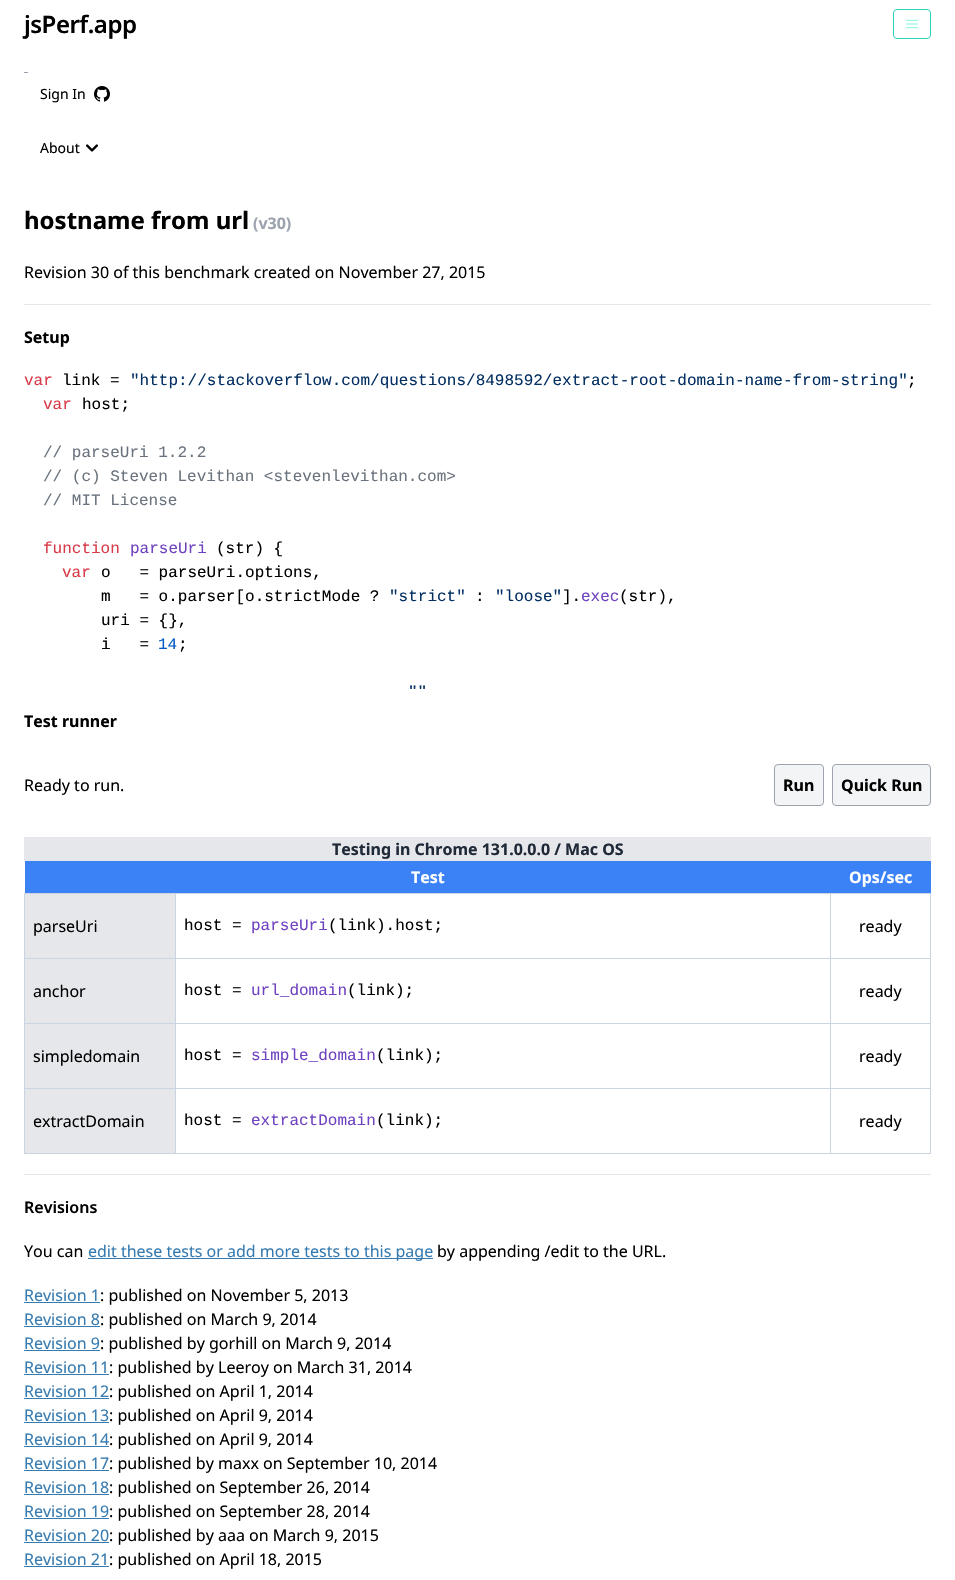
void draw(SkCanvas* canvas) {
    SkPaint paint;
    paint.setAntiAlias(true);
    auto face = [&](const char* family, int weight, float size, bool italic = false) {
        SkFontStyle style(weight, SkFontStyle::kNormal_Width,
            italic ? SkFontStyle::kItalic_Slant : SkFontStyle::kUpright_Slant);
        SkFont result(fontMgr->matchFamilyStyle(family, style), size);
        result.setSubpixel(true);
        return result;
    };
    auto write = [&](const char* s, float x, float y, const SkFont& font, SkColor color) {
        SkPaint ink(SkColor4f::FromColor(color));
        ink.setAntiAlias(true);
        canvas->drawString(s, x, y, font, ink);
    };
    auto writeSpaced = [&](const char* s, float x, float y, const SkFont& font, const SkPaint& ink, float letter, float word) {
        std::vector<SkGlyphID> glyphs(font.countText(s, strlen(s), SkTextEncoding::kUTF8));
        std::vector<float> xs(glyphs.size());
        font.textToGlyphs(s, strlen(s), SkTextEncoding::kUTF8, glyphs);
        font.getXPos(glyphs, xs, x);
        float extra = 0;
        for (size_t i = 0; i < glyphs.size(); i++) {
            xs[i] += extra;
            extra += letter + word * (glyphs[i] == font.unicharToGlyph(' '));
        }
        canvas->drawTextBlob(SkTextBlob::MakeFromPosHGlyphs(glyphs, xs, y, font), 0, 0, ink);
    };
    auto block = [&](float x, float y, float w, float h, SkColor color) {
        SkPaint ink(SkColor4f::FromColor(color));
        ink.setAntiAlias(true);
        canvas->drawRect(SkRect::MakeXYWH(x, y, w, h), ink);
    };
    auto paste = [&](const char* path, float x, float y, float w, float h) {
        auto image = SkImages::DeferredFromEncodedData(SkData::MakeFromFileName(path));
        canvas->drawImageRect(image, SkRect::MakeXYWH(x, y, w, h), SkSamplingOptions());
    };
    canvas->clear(SK_ColorWHITE);
    auto kFont1 = face("Noto Sans", 600, 24);
    paint.setColor(SK_ColorBLACK);
    writeSpaced("jsPerf.app", 24, 33, kFont1, paint, -0.5f, 0);
    paint.setStyle(SkPaint::kStroke_Style);
    paint.setStrokeWidth(1);
    paint.setColor(SkColorSetRGB(45, 212, 191));
    canvas->drawRoundRect(SkRect::MakeXYWH(893.5f, 9.5f, 37, 29), 3.5f, 3.5f, paint);
    paste("pic1.png", 906, 19, 12, 10);
    block(24, 72, 4, 1, SkColorSetRGB(156, 163, 175));
    auto kFont2 = face("Noto Sans", 400, 14);
    write("Sign In", 40, 99, kFont2, SK_ColorBLACK);
    paste("pic2.png", 94, 86, 16, 16);
    write("About", 40, 153, kFont2, SK_ColorBLACK);
    paste("pic3.png", 86, 144, 12, 8);
    auto kFont3 = face("Noto Sans", 700, 24);
    write("hostname from url", 24, 229, kFont3, SK_ColorBLACK);
    auto kFont4 = face("Noto Sans", 700, 16);
    write("(v30)", 253, 229, kFont4, SkColorSetRGB(156, 163, 175));
    auto kFont5 = face("Noto Sans", 400, 16);
    write("Revision 30 of this benchmark created on November 27, 2015", 24, 278, kFont5, SK_ColorBLACK);
    block(24, 304, 907, 1, SkColorSetRGB(229, 231, 235));
    write("Setup", 24, 343, kFont4, SK_ColorBLACK);
    auto kFont6 = face("Liberation Mono", 400, 16);
    write("var", 24, 385, kFont6, SkColorSetRGB(215, 58, 73));
    write("link =", 62, 385, kFont6, SK_ColorBLACK);
    write("\"http://stackoverflow.com/questions/8498592/extract-root-domain-name-from-string\"", 130, 385, kFont6, SkColorSetRGB(3, 47, 98));
    write(";", 907, 385, kFont6, SK_ColorBLACK);
    write("var", 43, 409, kFont6, SkColorSetRGB(215, 58, 73));
    write("host;", 82, 409, kFont6, SK_ColorBLACK);
    write("// parseUri 1.2.2", 43, 457, kFont6, SkColorSetRGB(106, 115, 125));
    write("// (c) Steven Levithan <stevenlevithan.com>", 43, 481, kFont6, SkColorSetRGB(106, 115, 125));
    write("// MIT License", 43, 505, kFont6, SkColorSetRGB(106, 115, 125));
    write("function", 43, 553, kFont6, SkColorSetRGB(215, 58, 73));
    write("parseUri", 130, 553, kFont6, SkColorSetRGB(111, 66, 193));
    write("(str) {", 216, 553, kFont6, SK_ColorBLACK);
    write("var", 62, 577, kFont6, SkColorSetRGB(215, 58, 73));
    write("o   = parseUri.options,", 101, 577, kFont6, SK_ColorBLACK);
    write("m   = o.parser[o.strictMode ?", 101, 601, kFont6, SK_ColorBLACK);
    write("\"strict\"", 389, 601, kFont6, SkColorSetRGB(3, 47, 98));
    write(":", 475, 601, kFont6, SK_ColorBLACK);
    write("\"loose\"", 495, 601, kFont6, SkColorSetRGB(3, 47, 98));
    write("].", 562, 601, kFont6, SK_ColorBLACK);
    write("exec", 581, 601, kFont6, SkColorSetRGB(111, 66, 193));
    write("(str),", 619, 601, kFont6, SK_ColorBLACK);
    write("uri = {},", 101, 625, kFont6, SK_ColorBLACK);
    write("i   =", 101, 649, kFont6, SK_ColorBLACK);
    write("14", 158, 649, kFont6, SkColorSetRGB(0, 92, 197));
    write(";", 178, 649, kFont6, SK_ColorBLACK);
    canvas->save();
    canvas->clipRect(SkRect::MakeXYWH(24, 369, 907, 320));
    write("\"\"", 408, 697, kFont6, SkColorSetRGB(3, 47, 98));
    canvas->restore();
    write("Test runner", 24, 727, kFont4, SK_ColorBLACK);
    write("Ready to run.", 24, 791, kFont5, SK_ColorBLACK);
    paint.setStyle(SkPaint::kFill_Style);
    paint.setColor(SkColorSetRGB(243, 244, 246));
    canvas->drawRoundRect(SkRect::MakeXYWH(774.5f, 764.5f, 49, 41), 3.5f, 3.5f, paint);
    paint.setStyle(SkPaint::kStroke_Style);
    paint.setColor(SkColorSetRGB(156, 163, 175));
    canvas->drawRoundRect(SkRect::MakeXYWH(774.5f, 764.5f, 49, 41), 3.5f, 3.5f, paint);
    write("Run", 783, 791, kFont4, SK_ColorBLACK);
    paint.setStyle(SkPaint::kFill_Style);
    paint.setColor(SkColorSetRGB(243, 244, 246));
    canvas->drawRoundRect(SkRect::MakeXYWH(832.5f, 764.5f, 98, 41), 3.5f, 3.5f, paint);
    paint.setStyle(SkPaint::kStroke_Style);
    paint.setColor(SkColorSetRGB(156, 163, 175));
    canvas->drawRoundRect(SkRect::MakeXYWH(832.5f, 764.5f, 98, 41), 3.5f, 3.5f, paint);
    write("Quick Run", 841, 791, kFont4, SK_ColorBLACK);
    block(24, 837, 907, 24, SkColorSetRGB(229, 231, 235));
    write("Testing in Chrome 131.0.0.0 / Mac OS", 332, 855, kFont4, SkColorSetRGB(31, 41, 55));
    block(25, 861, 906, 32, SkColorSetRGB(59, 130, 246));
    write("Test", 411, 883, kFont4, SK_ColorWHITE);
    write("Ops/sec", 849, 883, kFont4, SK_ColorWHITE);
    block(25, 894, 150, 64, SkColorSetRGB(229, 231, 235));
    block(830, 893, 101, 1, SkColorSetRGB(203, 213, 225));
    block(830, 958, 101, 1, SkColorSetRGB(203, 213, 225));
    block(830, 1023, 101, 1, SkColorSetRGB(203, 213, 225));
    block(830, 1088, 101, 1, SkColorSetRGB(203, 213, 225));
    block(930, 1088, 1, 66, SkColorSetRGB(203, 213, 225));
    block(830, 1153, 101, 1, SkColorSetRGB(203, 213, 225));
    block(830, 1088, 1, 66, SkColorSetRGB(203, 213, 225));
    block(175, 1088, 656, 1, SkColorSetRGB(203, 213, 225));
    block(830, 1023, 1, 66, SkColorSetRGB(203, 213, 225));
    block(175, 1023, 656, 1, SkColorSetRGB(203, 213, 225));
    block(830, 958, 1, 66, SkColorSetRGB(203, 213, 225));
    block(175, 958, 656, 1, SkColorSetRGB(203, 213, 225));
    block(830, 893, 1, 66, SkColorSetRGB(203, 213, 225));
    block(175, 893, 656, 1, SkColorSetRGB(203, 213, 225));
    block(175, 1153, 656, 1, SkColorSetRGB(203, 213, 225));
    block(175, 1088, 1, 66, SkColorSetRGB(203, 213, 225));
    block(24, 1088, 152, 1, SkColorSetRGB(203, 213, 225));
    block(175, 1023, 1, 66, SkColorSetRGB(203, 213, 225));
    block(24, 1023, 152, 1, SkColorSetRGB(203, 213, 225));
    block(175, 958, 1, 66, SkColorSetRGB(203, 213, 225));
    block(24, 958, 152, 1, SkColorSetRGB(203, 213, 225));
    block(175, 893, 1, 66, SkColorSetRGB(203, 213, 225));
    block(24, 893, 152, 1, SkColorSetRGB(203, 213, 225));
    block(24, 1153, 152, 1, SkColorSetRGB(203, 213, 225));
    block(24, 1088, 1, 66, SkColorSetRGB(203, 213, 225));
    block(24, 1023, 1, 66, SkColorSetRGB(203, 213, 225));
    block(24, 958, 1, 66, SkColorSetRGB(203, 213, 225));
    block(24, 893, 1, 66, SkColorSetRGB(203, 213, 225));
    write("parseUri", 33, 932, kFont5, SK_ColorBLACK);
    write("host =", 184, 930, kFont6, SK_ColorBLACK);
    write("parseUri", 251, 930, kFont6, SkColorSetRGB(111, 66, 193));
    write("(link).host;", 328, 930, kFont6, SK_ColorBLACK);
    block(930, 1023, 1, 66, SkColorSetRGB(203, 213, 225));
    block(930, 958, 1, 66, SkColorSetRGB(203, 213, 225));
    block(930, 893, 1, 66, SkColorSetRGB(203, 213, 225));
    write("ready", 859, 932, kFont5, SK_ColorBLACK);
    block(25, 959, 150, 64, SkColorSetRGB(229, 231, 235));
    write("anchor", 33, 997, kFont5, SK_ColorBLACK);
    write("host =", 184, 995, kFont6, SK_ColorBLACK);
    write("url_domain", 251, 995, kFont6, SkColorSetRGB(111, 66, 193));
    write("(link);", 347, 995, kFont6, SK_ColorBLACK);
    write("ready", 859, 997, kFont5, SK_ColorBLACK);
    block(25, 1024, 150, 64, SkColorSetRGB(229, 231, 235));
    write("simpledomain", 33, 1062, kFont5, SK_ColorBLACK);
    write("host =", 184, 1060, kFont6, SK_ColorBLACK);
    write("simple_domain", 251, 1060, kFont6, SkColorSetRGB(111, 66, 193));
    write("(link);", 376, 1060, kFont6, SK_ColorBLACK);
    write("ready", 859, 1062, kFont5, SK_ColorBLACK);
    block(25, 1089, 150, 64, SkColorSetRGB(229, 231, 235));
    write("extractDomain", 33, 1127, kFont5, SK_ColorBLACK);
    write("host =", 184, 1125, kFont6, SK_ColorBLACK);
    write("extractDomain", 251, 1125, kFont6, SkColorSetRGB(111, 66, 193));
    write("(link);", 376, 1125, kFont6, SK_ColorBLACK);
    write("ready", 859, 1127, kFont5, SK_ColorBLACK);
    block(24, 1174, 907, 1, SkColorSetRGB(229, 231, 235));
    auto kFont7 = face("Noto Sans", 600, 16);
    write("Revisions", 24, 1213, kFont7, SK_ColorBLACK);
    write("You can", 24, 1257, kFont5, SK_ColorBLACK);
    block(88, 1258, 345, 1, SkColorSetRGB(53, 122, 176));
    write("edit these tests or add more tests to this page", 88, 1257, kFont5, SkColorSetRGB(53, 122, 176));
    write("by appending /edit to the URL.", 437, 1257, kFont5, SK_ColorBLACK);
    write("Revision 1", 24, 1301, kFont5, SkColorSetRGB(53, 122, 176));
    block(24, 1302, 76, 1, SkColorSetRGB(53, 122, 176));
    write(": published on November 5, 2013", 100, 1301, kFont5, SK_ColorBLACK);
    write("Revision 8", 24, 1325, kFont5, SkColorSetRGB(53, 122, 176));
    block(24, 1326, 76, 1, SkColorSetRGB(53, 122, 176));
    write(": published on March 9, 2014", 100, 1325, kFont5, SK_ColorBLACK);
    write("Revision 9", 24, 1349, kFont5, SkColorSetRGB(53, 122, 176));
    block(24, 1350, 76, 1, SkColorSetRGB(53, 122, 176));
    write(": published by gorhill on March 9, 2014", 100, 1349, kFont5, SK_ColorBLACK);
    write("Revision 11", 24, 1373, kFont5, SkColorSetRGB(53, 122, 176));
    block(24, 1374, 85, 1, SkColorSetRGB(53, 122, 176));
    write(": published by Leeroy on March 31, 2014", 109, 1373, kFont5, SK_ColorBLACK);
    write("Revision 12", 24, 1397, kFont5, SkColorSetRGB(53, 122, 176));
    block(24, 1398, 85, 1, SkColorSetRGB(53, 122, 176));
    write(": published on April 1, 2014", 109, 1397, kFont5, SK_ColorBLACK);
    write("Revision 13", 24, 1421, kFont5, SkColorSetRGB(53, 122, 176));
    block(24, 1422, 85, 1, SkColorSetRGB(53, 122, 176));
    write(": published on April 9, 2014", 109, 1421, kFont5, SK_ColorBLACK);
    write("Revision 14", 24, 1445, kFont5, SkColorSetRGB(53, 122, 176));
    block(24, 1446, 85, 1, SkColorSetRGB(53, 122, 176));
    write(": published on April 9, 2014", 109, 1445, kFont5, SK_ColorBLACK);
    write("Revision 17", 24, 1469, kFont5, SkColorSetRGB(53, 122, 176));
    block(24, 1470, 85, 1, SkColorSetRGB(53, 122, 176));
    write(": published by maxx on September 10, 2014", 109, 1469, kFont5, SK_ColorBLACK);
    write("Revision 18", 24, 1493, kFont5, SkColorSetRGB(53, 122, 176));
    block(24, 1494, 85, 1, SkColorSetRGB(53, 122, 176));
    write(": published on September 26, 2014", 109, 1493, kFont5, SK_ColorBLACK);
    write("Revision 19", 24, 1517, kFont5, SkColorSetRGB(53, 122, 176));
    block(24, 1518, 85, 1, SkColorSetRGB(53, 122, 176));
    write(": published on September 28, 2014", 109, 1517, kFont5, SK_ColorBLACK);
    write("Revision 20", 24, 1541, kFont5, SkColorSetRGB(53, 122, 176));
    block(24, 1542, 85, 1, SkColorSetRGB(53, 122, 176));
    write(": published by aaa on March 9, 2015", 109, 1541, kFont5, SK_ColorBLACK);
    write("Revision 21", 24, 1565, kFont5, SkColorSetRGB(53, 122, 176));
    block(24, 1566, 85, 1, SkColorSetRGB(53, 122, 176));
    write(": published on April 18, 2015", 109, 1565, kFont5, SK_ColorBLACK);
}
